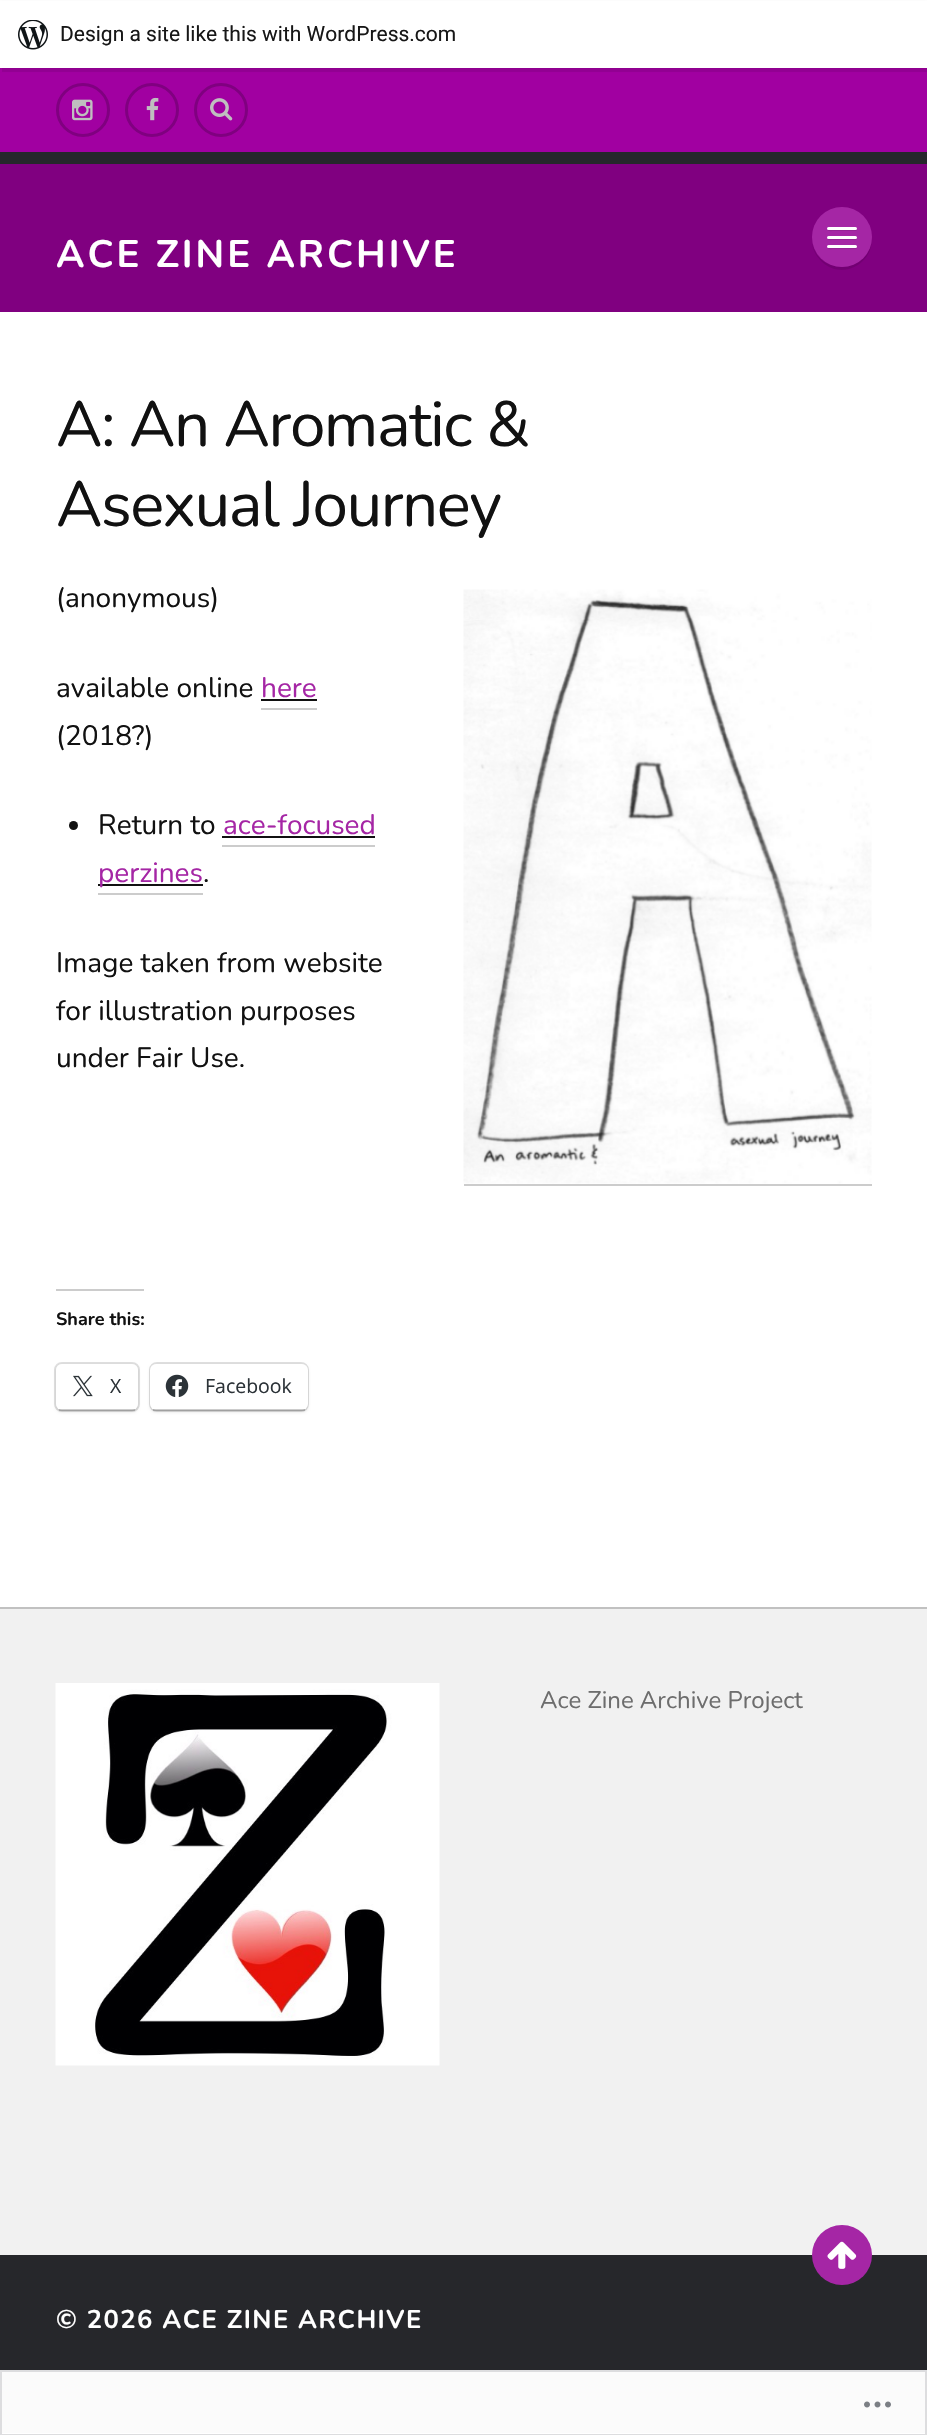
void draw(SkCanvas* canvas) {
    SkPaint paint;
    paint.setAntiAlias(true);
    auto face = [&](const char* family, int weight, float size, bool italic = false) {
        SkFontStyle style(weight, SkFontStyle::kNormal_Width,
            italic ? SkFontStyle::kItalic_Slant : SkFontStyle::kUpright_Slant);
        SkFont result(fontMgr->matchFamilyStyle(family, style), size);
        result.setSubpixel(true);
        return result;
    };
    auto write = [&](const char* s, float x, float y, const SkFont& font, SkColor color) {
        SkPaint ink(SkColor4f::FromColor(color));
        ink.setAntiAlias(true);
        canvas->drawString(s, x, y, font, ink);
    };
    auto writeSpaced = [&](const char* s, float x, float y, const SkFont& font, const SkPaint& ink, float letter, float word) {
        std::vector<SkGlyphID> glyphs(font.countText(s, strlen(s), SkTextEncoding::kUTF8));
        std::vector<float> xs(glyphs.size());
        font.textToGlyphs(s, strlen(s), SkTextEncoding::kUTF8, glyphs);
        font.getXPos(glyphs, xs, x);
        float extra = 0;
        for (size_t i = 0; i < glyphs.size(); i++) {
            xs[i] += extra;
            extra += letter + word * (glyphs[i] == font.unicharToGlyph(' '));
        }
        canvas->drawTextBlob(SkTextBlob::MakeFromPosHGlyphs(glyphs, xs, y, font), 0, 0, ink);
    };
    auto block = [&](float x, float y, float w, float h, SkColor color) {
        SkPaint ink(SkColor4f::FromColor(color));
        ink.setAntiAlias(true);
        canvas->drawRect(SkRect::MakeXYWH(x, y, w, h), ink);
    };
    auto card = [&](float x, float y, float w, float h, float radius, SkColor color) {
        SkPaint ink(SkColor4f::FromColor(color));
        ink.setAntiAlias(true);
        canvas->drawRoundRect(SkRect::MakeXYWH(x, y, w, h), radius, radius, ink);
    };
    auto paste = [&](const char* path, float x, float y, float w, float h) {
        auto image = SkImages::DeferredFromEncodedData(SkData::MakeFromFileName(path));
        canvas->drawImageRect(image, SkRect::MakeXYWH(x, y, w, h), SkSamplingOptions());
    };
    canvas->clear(SK_ColorWHITE);
    block(0, 68, 927, 84, SkColorSetRGB(161, 0, 161));
    paint.setColor(SkColorSetARGB(13, 0, 0, 0));
    paint.setMaskFilter(SkMaskFilter::MakeBlur(kNormal_SkBlurStyle, 1.5f));
    canvas->drawRect(SkRect::MakeXYWH(0, 2, 927, 67), paint);
    paint.setMaskFilter(nullptr);
    paint.setColor(SkColorSetARGB(20, 0, 0, 0));
    canvas->drawPath(SkPathBuilder().moveTo(2, 68).lineTo(2, 72).lineTo(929, 72).lineTo(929, 5).lineTo(927, 5).lineTo(927, 68).close().detach(), paint);
    block(0, 1, 927, 67, SK_ColorWHITE);
    paste("pic1.png", 18, 20, 30, 30);
    auto kFont1 = face("Roboto", 400, 21);
    write("Design a site like this with WordPress.com", 60, 41, kFont1, SkColorSetRGB(23, 23, 23));
    paint.setStyle(SkPaint::kStroke_Style);
    paint.setStrokeWidth(3);
    paint.setColor(SkColorSetRGB(128, 0, 128));
    canvas->drawCircle(83, 110, 25.5f, paint);
    paste("pic2.png", 72, 99, 21, 22);
    canvas->drawCircle(152, 110, 25.5f, paint);
    paste("pic3.png", 146, 97, 13, 24);
    canvas->drawCircle(221, 110, 25.5f, paint);
    paste("pic4.png", 210, 98, 23, 23);
    block(0, 164, 927, 148, SkColorSetRGB(128, 0, 128));
    block(0, 152, 927, 12, SkColorSetRGB(38, 39, 43));
    auto kFont2 = face("Nunito", 700, 38.25f);
    paint.setStyle(SkPaint::kFill_Style);
    paint.setColor(SK_ColorWHITE);
    writeSpaced("ACE ZINE ARCHIVE", 56, 267, kFont2, paint, 3, 0);
    paint.setColor(SkColorSetRGB(115, 0, 115));
    canvas->drawPath(SkPathBuilder().moveTo(812, 243).cubicTo(813, 251, 817, 257, 822, 262).cubicTo(844, 282, 877, 261, 871, 234).cubicTo(876, 271, 820, 280, 812, 243).close().detach(), paint);
    paint.setColor(SkColorSetRGB(165, 38, 165));
    canvas->drawCircle(842, 237, 30, paint);
    paint.setColor(SkColorSetRGB(149, 34, 149));
    canvas->drawPath(SkPathBuilder().moveTo(827, 229).cubicTo(826.5f, 232, 832.5f, 231, 833, 231).lineTo(856, 231).cubicTo(857, 230.5f, 857.5f, 229, 856.5f, 228.5f).cubicTo(856.5f, 229, 855.5f, 229.5f, 855, 229.5f).lineTo(828, 229.5f).close().detach(), paint);
    card(827, 227, 30, 3, 1.5f, SK_ColorWHITE);
    canvas->drawPath(SkPathBuilder().moveTo(827, 238).cubicTo(826.5f, 241, 832.5f, 240, 833, 240).lineTo(856, 240).cubicTo(857, 239.5f, 857.5f, 238, 856.5f, 237.5f).cubicTo(856.5f, 238, 855.5f, 238.5f, 855, 238.5f).lineTo(828, 238.5f).close().detach(), paint);
    card(827, 236, 30, 3, 1.5f, SK_ColorWHITE);
    canvas->drawPath(SkPathBuilder().moveTo(827, 247).cubicTo(826.5f, 250, 832.5f, 249, 833, 249).lineTo(856, 249).cubicTo(857, 248.5f, 857.5f, 247, 856.5f, 246.5f).cubicTo(856.5f, 247, 855.5f, 247.5f, 855, 247.5f).lineTo(828, 247.5f).close().detach(), paint);
    card(827, 245, 30, 3, 1.5f, SK_ColorWHITE);
    auto kFont3 = face("Nunito", 400, 63.75f);
    paint.setColor(SkColorSetRGB(17, 17, 17));
    writeSpaced("A: An Aromatic &", 56, 446, kFont3, paint, -1.5f, 0);
    writeSpaced("Asexual Journey", 56, 526, kFont3, paint, -1.5f, 0);
    auto kFont4 = face("Nunito", 400, 28);
    write("(anonymous)", 56, 607, kFont4, SkColorSetRGB(17, 17, 17));
    block(464, 1184, 408, 2, SkColorSetRGB(204, 204, 204));
    paste("pic5.png", 463, 589, 409, 595);
    write("available online", 56, 697, kFont4, SkColorSetRGB(17, 17, 17));
    write("here", 261, 697, kFont4, SkColorSetRGB(165, 38, 165));
    block(261, 708, 56, 2, SkColorSetRGB(204, 204, 204));
    block(261, 699, 56, 2, SkColorSetRGB(17, 17, 17));
    write("(2018?)", 56, 745, kFont4, SkColorSetRGB(17, 17, 17));
    canvas->drawCircle(73.5f, 825.5f, 4.5f, paint);
    write("Return to", 98, 834, kFont4, SkColorSetRGB(17, 17, 17));
    write("ace-focused", 223, 834, kFont4, SkColorSetRGB(165, 38, 165));
    block(222, 845, 153, 2, SkColorSetRGB(204, 204, 204));
    block(222, 836, 153, 2, SkColorSetRGB(17, 17, 17));
    block(98, 884, 105, 2, SkColorSetRGB(17, 17, 17));
    write("perzines", 98, 882, kFont4, SkColorSetRGB(165, 38, 165));
    block(98, 893, 105, 2, SkColorSetRGB(204, 204, 204));
    write(".", 203, 882, kFont4, SkColorSetRGB(17, 17, 17));
    write("Image taken from website", 56, 972, kFont4, SkColorSetRGB(17, 17, 17));
    write("for illustration purposes", 56, 1020, kFont4, SkColorSetRGB(17, 17, 17));
    write("under Fair Use.", 56, 1067, kFont4, SkColorSetRGB(17, 17, 17));
    block(56, 1289, 88, 2, SkColorSetRGB(204, 204, 204));
    auto kFont5 = face("Nunito", 700, 18);
    write("Share this:", 56, 1325, kFont5, SkColorSetRGB(17, 17, 17));
    paint.setStyle(SkPaint::kStroke_Style);
    paint.setStrokeWidth(2);
    paint.setColor(SkColorSetRGB(224, 224, 224));
    canvas->drawRoundRect(SkRect::MakeXYWH(55, 1363, 84, 48), 7, 7, paint);
    paint.setStyle(SkPaint::kFill_Style);
    paint.setColor(SkColorSetARGB(31, 0, 0, 0));
    paint.setMaskFilter(SkMaskFilter::MakeBlur(kNormal_SkBlurStyle, 1.5f));
    canvas->drawRoundRect(SkRect::MakeXYWH(56, 1365, 82, 47), 6, 6, paint);
    paint.setMaskFilter(nullptr);
    card(56, 1364, 82, 46, 6, SK_ColorWHITE);
    block(59, 1409, 76, 2, SkColorSetARGB(51, 0, 0, 0));
    paste("pic6.png", 73, 1375, 20, 22);
    auto kFont6 = face("Open Sans", 400, 19.5f);
    write("X", 110, 1393, kFont6, SkColorSetRGB(44, 51, 56));
    paint.setStyle(SkPaint::kStroke_Style);
    paint.setColor(SkColorSetRGB(224, 224, 224));
    canvas->drawRoundRect(SkRect::MakeXYWH(150, 1363, 158, 48), 7, 7, paint);
    paint.setStyle(SkPaint::kFill_Style);
    paint.setColor(SkColorSetARGB(31, 0, 0, 0));
    paint.setMaskFilter(SkMaskFilter::MakeBlur(kNormal_SkBlurStyle, 1.5f));
    canvas->drawRoundRect(SkRect::MakeXYWH(150, 1365, 158, 47), 6, 6, paint);
    paint.setMaskFilter(nullptr);
    card(150, 1364, 158, 46, 6, SK_ColorWHITE);
    block(153, 1409, 152, 2, SkColorSetARGB(51, 0, 0, 0));
    paste("pic7.png", 165, 1374, 24, 23);
    write("Facebook", 205, 1393, kFont6, SkColorSetRGB(44, 51, 56));
    block(0, 1609, 927, 646, SkColorSetRGB(241, 241, 241));
    block(0, 1607, 927, 2, SkColorSetRGB(193, 193, 193));
    paste("pic8.png", 55, 1683, 385, 383);
    auto kFont7 = face("Nunito", 400, 24);
    write("Ace Zine Archive Project", 540, 1708, kFont7, SkColorSetRGB(109, 109, 109));
    block(0, 2255, 927, 178, SkColorSetRGB(38, 39, 43));
    paint.setColor(SkColorSetRGB(165, 38, 165));
    canvas->drawCircle(842, 2255, 30, paint);
    paste("pic9.png", 827, 2241, 30, 28);
    auto kFont8 = face("Nunito", 700, 25.5f);
    paint.setColor(SK_ColorWHITE);
    writeSpaced("© 2026 ACE ZINE ARCHIVE", 56, 2328, kFont8, paint, 1.5f, 0);
    block(0, 2370, 927, 63, SkColorSetARGB(250, 255, 255, 255));
    paint.setStyle(SkPaint::kStroke_Style);
    paint.setColor(SkColorSetARGB(250, 220, 220, 222));
    canvas->drawRect(SkRect::MakeXYWH(1, 2371, 925, 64), paint);
    paste("pic10.png", 864, 2401, 27, 7);
}
